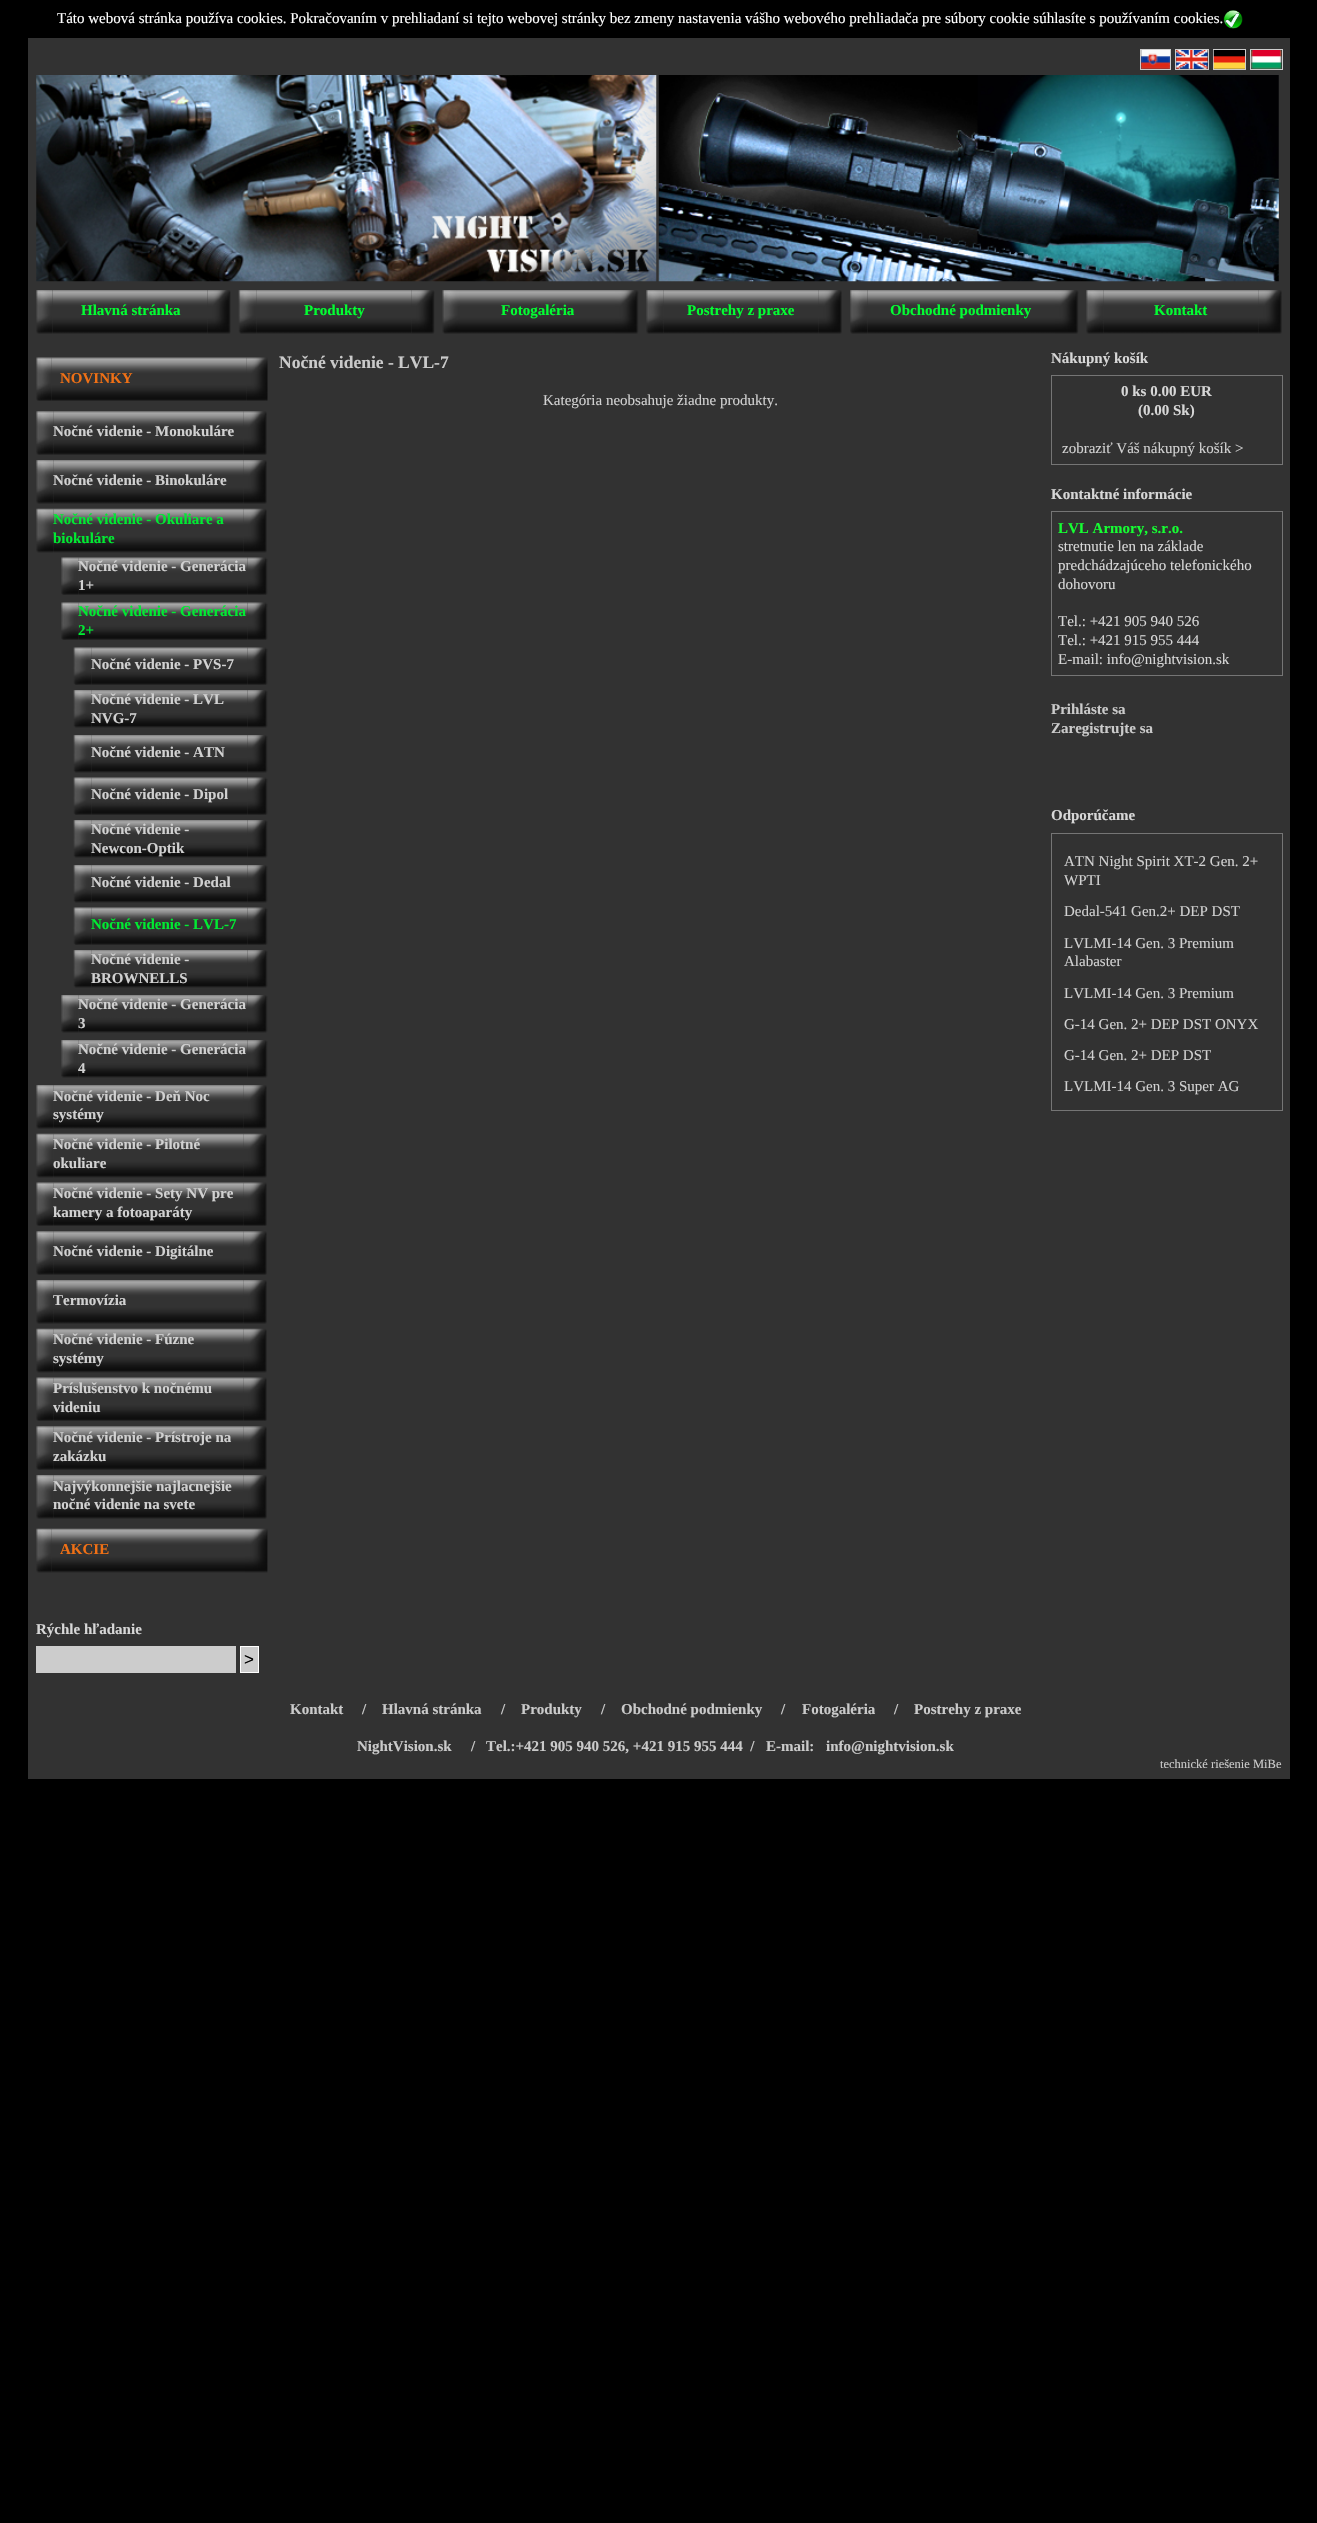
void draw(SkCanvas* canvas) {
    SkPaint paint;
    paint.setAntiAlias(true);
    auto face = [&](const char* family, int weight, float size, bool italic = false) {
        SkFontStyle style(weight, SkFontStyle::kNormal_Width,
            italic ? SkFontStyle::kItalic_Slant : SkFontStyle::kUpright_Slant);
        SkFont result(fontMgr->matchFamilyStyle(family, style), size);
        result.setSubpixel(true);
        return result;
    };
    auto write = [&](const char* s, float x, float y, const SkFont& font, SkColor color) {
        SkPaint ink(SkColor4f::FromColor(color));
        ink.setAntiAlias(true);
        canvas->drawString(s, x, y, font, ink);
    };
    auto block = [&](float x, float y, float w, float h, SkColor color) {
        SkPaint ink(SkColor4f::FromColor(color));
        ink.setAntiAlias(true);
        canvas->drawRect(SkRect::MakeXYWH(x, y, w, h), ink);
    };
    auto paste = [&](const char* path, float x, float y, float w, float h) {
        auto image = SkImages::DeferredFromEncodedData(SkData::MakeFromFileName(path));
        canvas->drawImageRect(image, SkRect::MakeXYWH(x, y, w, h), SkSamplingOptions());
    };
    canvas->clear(SK_ColorBLACK);
    auto kFont1 = face("Liberation Serif", 400, 15);
    write("Táto webová stránka používa cookies. Pokračovaním v prehliadaní si tejto webovej stránky bez zmeny nastavenia vášho webového prehliadača pre súbory cookie súhlasíte s používaním cookies.", 57, 23, kFont1, SK_ColorWHITE);
    paste("pic1.png", 1223, 10, 20, 19);
    block(28, 38, 1262, 1741, SkColorSetRGB(50, 50, 50));
    paint.setStyle(SkPaint::kStroke_Style);
    paint.setStrokeWidth(1);
    paint.setColor(SkColorSetRGB(204, 204, 204));
    canvas->drawRect(SkRect::MakeXYWH(1140.5f, 49.5f, 30, 20), paint);
    canvas->drawRect(SkRect::MakeXYWH(1175.5f, 49.5f, 33, 20), paint);
    canvas->drawRect(SkRect::MakeXYWH(1213.5f, 49.5f, 32, 20), paint);
    canvas->drawRect(SkRect::MakeXYWH(1250.5f, 49.5f, 32, 20), paint);
    paste("pic2.png", 1141, 50, 29, 19);
    paste("pic3.png", 1176, 50, 32, 19);
    paste("pic4.png", 1213, 50, 32, 19);
    paste("pic5.png", 1251, 50, 31, 19);
    paste("pic6.png", 36, 75, 621, 207);
    paste("pic7.png", 658, 75, 621, 207);
    paste("pic8.png", 36, 290, 17, 44);
    paste("pic9.png", 52, 290, 156, 44);
    auto kFont2 = face("Liberation Serif", 700, 15);
    write("Hlavná stránka", 81, 315, kFont2, SkColorSetRGB(2, 255, 50));
    paste("pic10.png", 207, 290, 24, 44);
    paste("pic11.png", 238, 290, 19, 44);
    paste("pic12.png", 256, 290, 156, 44);
    write("Produkty", 304, 315, kFont2, SkColorSetRGB(2, 255, 50));
    paste("pic13.png", 411, 290, 24, 44);
    paste("pic14.png", 442, 290, 18, 44);
    paste("pic15.png", 460, 290, 155, 44);
    write("Fotogaléria", 501, 315, kFont2, SkColorSetRGB(2, 255, 50));
    paste("pic16.png", 615, 290, 24, 44);
    paste("pic17.png", 646, 290, 18, 44);
    paste("pic18.png", 663, 290, 156, 44);
    write("Postrehy z praxe", 687, 315, kFont2, SkColorSetRGB(2, 255, 50));
    paste("pic19.png", 818, 290, 24, 44);
    paste("pic20.png", 850, 290, 18, 44);
    paste("pic21.png", 867, 290, 188, 44);
    write("Obchodné podmienky", 890, 315, kFont2, SkColorSetRGB(2, 255, 50));
    paste("pic22.png", 1055, 290, 24, 44);
    paste("pic23.png", 1086, 290, 18, 44);
    paste("pic24.png", 1103, 290, 156, 44);
    write("Kontakt", 1154, 315, kFont2, SkColorSetRGB(2, 255, 50));
    paste("pic25.png", 1258, 290, 24, 44);
    paste("pic26.png", 36, 357, 16, 44);
    paste("pic27.png", 51, 357, 196, 44);
    write("NOVINKY", 60, 383, kFont2, SkColorSetRGB(240, 112, 21));
    paste("pic28.png", 246, 357, 22, 44);
    paste("pic29.png", 36, 411, 18, 44);
    paste("pic30.png", 53, 411, 191, 44);
    write("Nočné videnie - Monokuláre", 53, 436, kFont2, SkColorSetRGB(209, 209, 209));
    paste("pic31.png", 243, 411, 24, 44);
    paste("pic32.png", 36, 460, 18, 44);
    paste("pic33.png", 53, 460, 191, 44);
    write("Nočné videnie - Binokuláre", 53, 485, kFont2, SkColorSetRGB(209, 209, 209));
    paste("pic34.png", 243, 460, 24, 44);
    paste("pic35.png", 36, 508, 18, 45);
    paste("pic36.png", 53, 508, 191, 45);
    write("Nočné videnie - Okuliare a", 53, 524, kFont2, SkColorSetRGB(0, 235, 50));
    write("biokuláre", 53, 543, kFont2, SkColorSetRGB(0, 235, 50));
    paste("pic37.png", 243, 508, 24, 45);
    paste("pic38.png", 61, 557, 18, 38);
    paste("pic39.png", 78, 557, 170, 38);
    write("Nočné videnie - Generácia", 78, 571, kFont2, SkColorSetRGB(209, 209, 209));
    write("1+", 78, 590, kFont2, SkColorSetRGB(209, 209, 209));
    paste("pic40.png", 247, 557, 21, 38);
    paste("pic41.png", 61, 602, 18, 38);
    paste("pic42.png", 78, 602, 170, 38);
    write("Nočné videnie - Generácia", 78, 616, kFont2, SkColorSetRGB(0, 235, 50));
    write("2+", 78, 635, kFont2, SkColorSetRGB(0, 235, 50));
    paste("pic43.png", 247, 602, 21, 38);
    paste("pic44.png", 73, 647, 19, 38);
    paste("pic45.png", 91, 647, 157, 38);
    write("Nočné videnie - PVS-7", 91, 669, kFont2, SkColorSetRGB(209, 209, 209));
    paste("pic43.png", 247, 647, 21, 38);
    paste("pic46.png", 73, 690, 19, 38);
    paste("pic47.png", 91, 690, 157, 38);
    write("Nočné videnie - LVL", 91, 704, kFont2, SkColorSetRGB(209, 209, 209));
    write("NVG-7", 91, 723, kFont2, SkColorSetRGB(209, 209, 209));
    paste("pic48.png", 247, 690, 21, 38);
    paste("pic46.png", 73, 735, 19, 38);
    paste("pic47.png", 91, 735, 157, 38);
    write("Nočné videnie - ATN", 91, 757, kFont2, SkColorSetRGB(209, 209, 209));
    paste("pic48.png", 247, 735, 21, 38);
    paste("pic49.png", 73, 777, 19, 38);
    paste("pic50.png", 91, 777, 157, 38);
    write("Nočné videnie - Dipol", 91, 799, kFont2, SkColorSetRGB(209, 209, 209));
    paste("pic51.png", 247, 777, 21, 38);
    paste("pic46.png", 73, 820, 19, 38);
    paste("pic47.png", 91, 820, 157, 38);
    write("Nočné videnie -", 91, 834, kFont2, SkColorSetRGB(209, 209, 209));
    write("Newcon-Optik", 91, 853, kFont2, SkColorSetRGB(209, 209, 209));
    paste("pic48.png", 247, 820, 21, 38);
    paste("pic46.png", 73, 865, 19, 38);
    paste("pic47.png", 91, 865, 157, 38);
    write("Nočné videnie - Dedal", 91, 887, kFont2, SkColorSetRGB(209, 209, 209));
    paste("pic48.png", 247, 865, 21, 38);
    paste("pic44.png", 73, 907, 19, 38);
    paste("pic52.png", 91, 907, 157, 38);
    write("Nočné videnie - LVL-7", 91, 929, kFont2, SkColorSetRGB(0, 235, 50));
    paste("pic43.png", 247, 907, 21, 38);
    paste("pic46.png", 73, 950, 19, 38);
    paste("pic47.png", 91, 950, 157, 38);
    write("Nočné videnie -", 91, 964, kFont2, SkColorSetRGB(209, 209, 209));
    write("BROWNELLS", 91, 983, kFont2, SkColorSetRGB(209, 209, 209));
    paste("pic48.png", 247, 950, 21, 38);
    paste("pic53.png", 61, 995, 18, 38);
    paste("pic54.png", 78, 995, 170, 38);
    write("Nočné videnie - Generácia", 78, 1009, kFont2, SkColorSetRGB(209, 209, 209));
    write("3", 78, 1028, kFont2, SkColorSetRGB(209, 209, 209));
    paste("pic48.png", 247, 995, 21, 38);
    paste("pic53.png", 61, 1040, 18, 38);
    paste("pic55.png", 78, 1040, 170, 38);
    write("Nočné videnie - Generácia", 78, 1054, kFont2, SkColorSetRGB(209, 209, 209));
    write("4", 78, 1073, kFont2, SkColorSetRGB(209, 209, 209));
    paste("pic48.png", 247, 1040, 21, 38);
    paste("pic32.png", 36, 1085, 18, 44);
    paste("pic33.png", 53, 1085, 191, 44);
    write("Nočné videnie - Deň Noc", 53, 1101, kFont2, SkColorSetRGB(209, 209, 209));
    write("systémy", 53, 1119, kFont2, SkColorSetRGB(209, 209, 209));
    paste("pic34.png", 243, 1085, 24, 44);
    paste("pic35.png", 36, 1133, 18, 45);
    paste("pic36.png", 53, 1133, 191, 45);
    write("Nočné videnie - Pilotné", 53, 1149, kFont2, SkColorSetRGB(209, 209, 209));
    write("okuliare", 53, 1168, kFont2, SkColorSetRGB(209, 209, 209));
    paste("pic37.png", 243, 1133, 24, 45);
    paste("pic56.png", 36, 1182, 18, 44);
    paste("pic57.png", 53, 1182, 191, 44);
    write("Nočné videnie - Sety NV pre", 53, 1198, kFont2, SkColorSetRGB(209, 209, 209));
    write("kamery a fotoaparáty", 53, 1217, kFont2, SkColorSetRGB(209, 209, 209));
    paste("pic58.png", 243, 1182, 24, 44);
    paste("pic29.png", 36, 1231, 18, 44);
    paste("pic59.png", 53, 1231, 191, 44);
    write("Nočné videnie - Digitálne", 53, 1256, kFont2, SkColorSetRGB(209, 209, 209));
    paste("pic31.png", 243, 1231, 24, 44);
    paste("pic32.png", 36, 1280, 18, 44);
    paste("pic33.png", 53, 1280, 191, 44);
    write("Termovízia", 53, 1305, kFont2, SkColorSetRGB(209, 209, 209));
    paste("pic34.png", 243, 1280, 24, 44);
    paste("pic35.png", 36, 1328, 18, 45);
    paste("pic60.png", 53, 1328, 191, 45);
    write("Nočné videnie - Fúzne", 53, 1344, kFont2, SkColorSetRGB(209, 209, 209));
    write("systémy", 53, 1363, kFont2, SkColorSetRGB(209, 209, 209));
    paste("pic37.png", 243, 1328, 24, 45);
    paste("pic56.png", 36, 1377, 18, 44);
    paste("pic61.png", 53, 1377, 191, 44);
    write("Príslušenstvo k nočnému", 53, 1393, kFont2, SkColorSetRGB(209, 209, 209));
    write("videniu", 53, 1412, kFont2, SkColorSetRGB(209, 209, 209));
    paste("pic58.png", 243, 1377, 24, 44);
    paste("pic29.png", 36, 1426, 18, 44);
    paste("pic59.png", 53, 1426, 191, 44);
    write("Nočné videnie - Prístroje na", 53, 1442, kFont2, SkColorSetRGB(209, 209, 209));
    write("zakázku", 53, 1461, kFont2, SkColorSetRGB(209, 209, 209));
    paste("pic31.png", 243, 1426, 24, 44);
    paste("pic32.png", 36, 1475, 18, 44);
    paste("pic62.png", 53, 1475, 191, 44);
    write("Najvýkonnejšie najlacnejšie", 53, 1491, kFont2, SkColorSetRGB(209, 209, 209));
    write("nočné videnie na svete", 53, 1509, kFont2, SkColorSetRGB(209, 209, 209));
    paste("pic34.png", 243, 1475, 24, 44);
    paste("pic63.png", 36, 1528, 16, 45);
    paste("pic64.png", 51, 1528, 194, 45);
    write("AKCIE", 60, 1554, kFont2, SkColorSetRGB(240, 112, 21));
    paste("pic65.png", 245, 1528, 23, 45);
    write("Rýchle hľadanie", 36, 1634, kFont2, SkColorSetRGB(215, 215, 215));
    block(36, 1646, 200, 27, SkColorSetRGB(204, 204, 204));
    paint.setStyle(SkPaint::kFill_Style);
    canvas->drawRect(SkRect::MakeXYWH(240.5f, 1646.5f, 18, 26), paint);
    paint.setStyle(SkPaint::kStroke_Style);
    paint.setColor(SK_ColorWHITE);
    canvas->drawRect(SkRect::MakeXYWH(240.5f, 1646.5f, 18, 26), paint);
    auto kFont3 = face("Liberation Sans", 400, 17);
    write(">", 244, 1665, kFont3, SK_ColorBLACK);
    auto kFont4 = face("Liberation Serif", 700, 17.5f);
    write("Nočné videnie - LVL-7", 279, 368, kFont4, SkColorSetRGB(202, 202, 202));
    write("Kategória neobsahuje žiadne produkty.", 543, 405, kFont1, SkColorSetRGB(209, 209, 209));
    write("Nákupný košík", 1051, 363, kFont2, SkColorSetRGB(215, 215, 215));
    paint.setColor(SkColorSetRGB(117, 117, 117));
    canvas->drawRect(SkRect::MakeXYWH(1051.5f, 375.5f, 231, 89), paint);
    write("0 ks 0.00 EUR", 1121, 396, kFont2, SkColorSetRGB(215, 215, 215));
    write("(0.00 Sk)", 1138, 415, kFont2, SkColorSetRGB(215, 215, 215));
    write("zobraziť Váš nákupný košík >", 1062, 453, kFont1, SkColorSetRGB(209, 209, 209));
    write("Kontaktné informácie", 1051, 499, kFont2, SkColorSetRGB(215, 215, 215));
    canvas->drawRect(SkRect::MakeXYWH(1051.5f, 511.5f, 231, 164), paint);
    write("LVL Armory, s.r.o.", 1058, 533, kFont2, SkColorSetRGB(21, 255, 50));
    write("stretnutie len na základe", 1058, 551, kFont1, SkColorSetRGB(215, 215, 215));
    write("predchádzajúceho telefonického", 1058, 570, kFont1, SkColorSetRGB(215, 215, 215));
    write("dohovoru", 1058, 589, kFont1, SkColorSetRGB(215, 215, 215));
    write("Tel.: +421 905 940 526", 1058, 626, kFont1, SkColorSetRGB(215, 215, 215));
    write("Tel.: +421 915 955 444", 1058, 645, kFont1, SkColorSetRGB(215, 215, 215));
    write("E-mail: info@nightvision.sk", 1058, 664, kFont1, SkColorSetRGB(215, 215, 215));
    write("Prihláste sa", 1051, 714, kFont2, SkColorSetRGB(202, 202, 202));
    write("Zaregistrujte sa", 1051, 733, kFont2, SkColorSetRGB(202, 202, 202));
    write("Odporúčame", 1051, 820, kFont2, SkColorSetRGB(215, 215, 215));
    canvas->drawRect(SkRect::MakeXYWH(1051.5f, 833.5f, 231, 277), paint);
    write("ATN Night Spirit XT-2 Gen. 2+", 1064, 866, kFont1, SkColorSetRGB(209, 209, 209));
    write("WPTI", 1064, 885, kFont1, SkColorSetRGB(209, 209, 209));
    write("Dedal-541 Gen.2+ DEP DST", 1064, 916, kFont1, SkColorSetRGB(209, 209, 209));
    write("LVLMI-14 Gen. 3 Premium", 1064, 948, kFont1, SkColorSetRGB(209, 209, 209));
    write("Alabaster", 1064, 966, kFont1, SkColorSetRGB(209, 209, 209));
    write("LVLMI-14 Gen. 3 Premium", 1064, 998, kFont1, SkColorSetRGB(209, 209, 209));
    write("G-14 Gen. 2+ DEP DST ONYX", 1064, 1029, kFont1, SkColorSetRGB(209, 209, 209));
    write("G-14 Gen. 2+ DEP DST", 1064, 1060, kFont1, SkColorSetRGB(209, 209, 209));
    write("LVLMI-14 Gen. 3 Super AG", 1064, 1091, kFont1, SkColorSetRGB(209, 209, 209));
    write("Kontakt", 290, 1714, kFont2, SkColorSetRGB(202, 202, 202));
    write("/", 362, 1714, kFont2, SkColorSetRGB(202, 202, 202));
    write("Hlavná stránka", 382, 1714, kFont2, SkColorSetRGB(202, 202, 202));
    write("/", 501, 1714, kFont2, SkColorSetRGB(202, 202, 202));
    write("Produkty", 521, 1714, kFont2, SkColorSetRGB(202, 202, 202));
    write("/", 601, 1714, kFont2, SkColorSetRGB(202, 202, 202));
    write("Obchodné podmienky", 621, 1714, kFont2, SkColorSetRGB(202, 202, 202));
    write("/", 781, 1714, kFont2, SkColorSetRGB(202, 202, 202));
    write("Fotogaléria", 802, 1714, kFont2, SkColorSetRGB(202, 202, 202));
    write("/", 894, 1714, kFont2, SkColorSetRGB(202, 202, 202));
    write("Postrehy z praxe", 914, 1714, kFont2, SkColorSetRGB(202, 202, 202));
    write("NightVision.sk", 357, 1751, kFont2, SkColorSetRGB(202, 202, 202));
    write("/", 471, 1751, kFont2, SkColorSetRGB(202, 202, 202));
    write("Tel.:+421 905 940 526, +421 915 955 444  /", 486, 1751, kFont2, SkColorSetRGB(202, 202, 202));
    write("E-mail:", 766, 1751, kFont2, SkColorSetRGB(202, 202, 202));
    write("info@nightvision.sk", 826, 1751, kFont2, SkColorSetRGB(202, 202, 202));
    auto kFont5 = face("Liberation Serif", 400, 12.5f);
    write("technické riešenie MiBe", 1160, 1768, kFont5, SkColorSetRGB(202, 202, 202));
}
